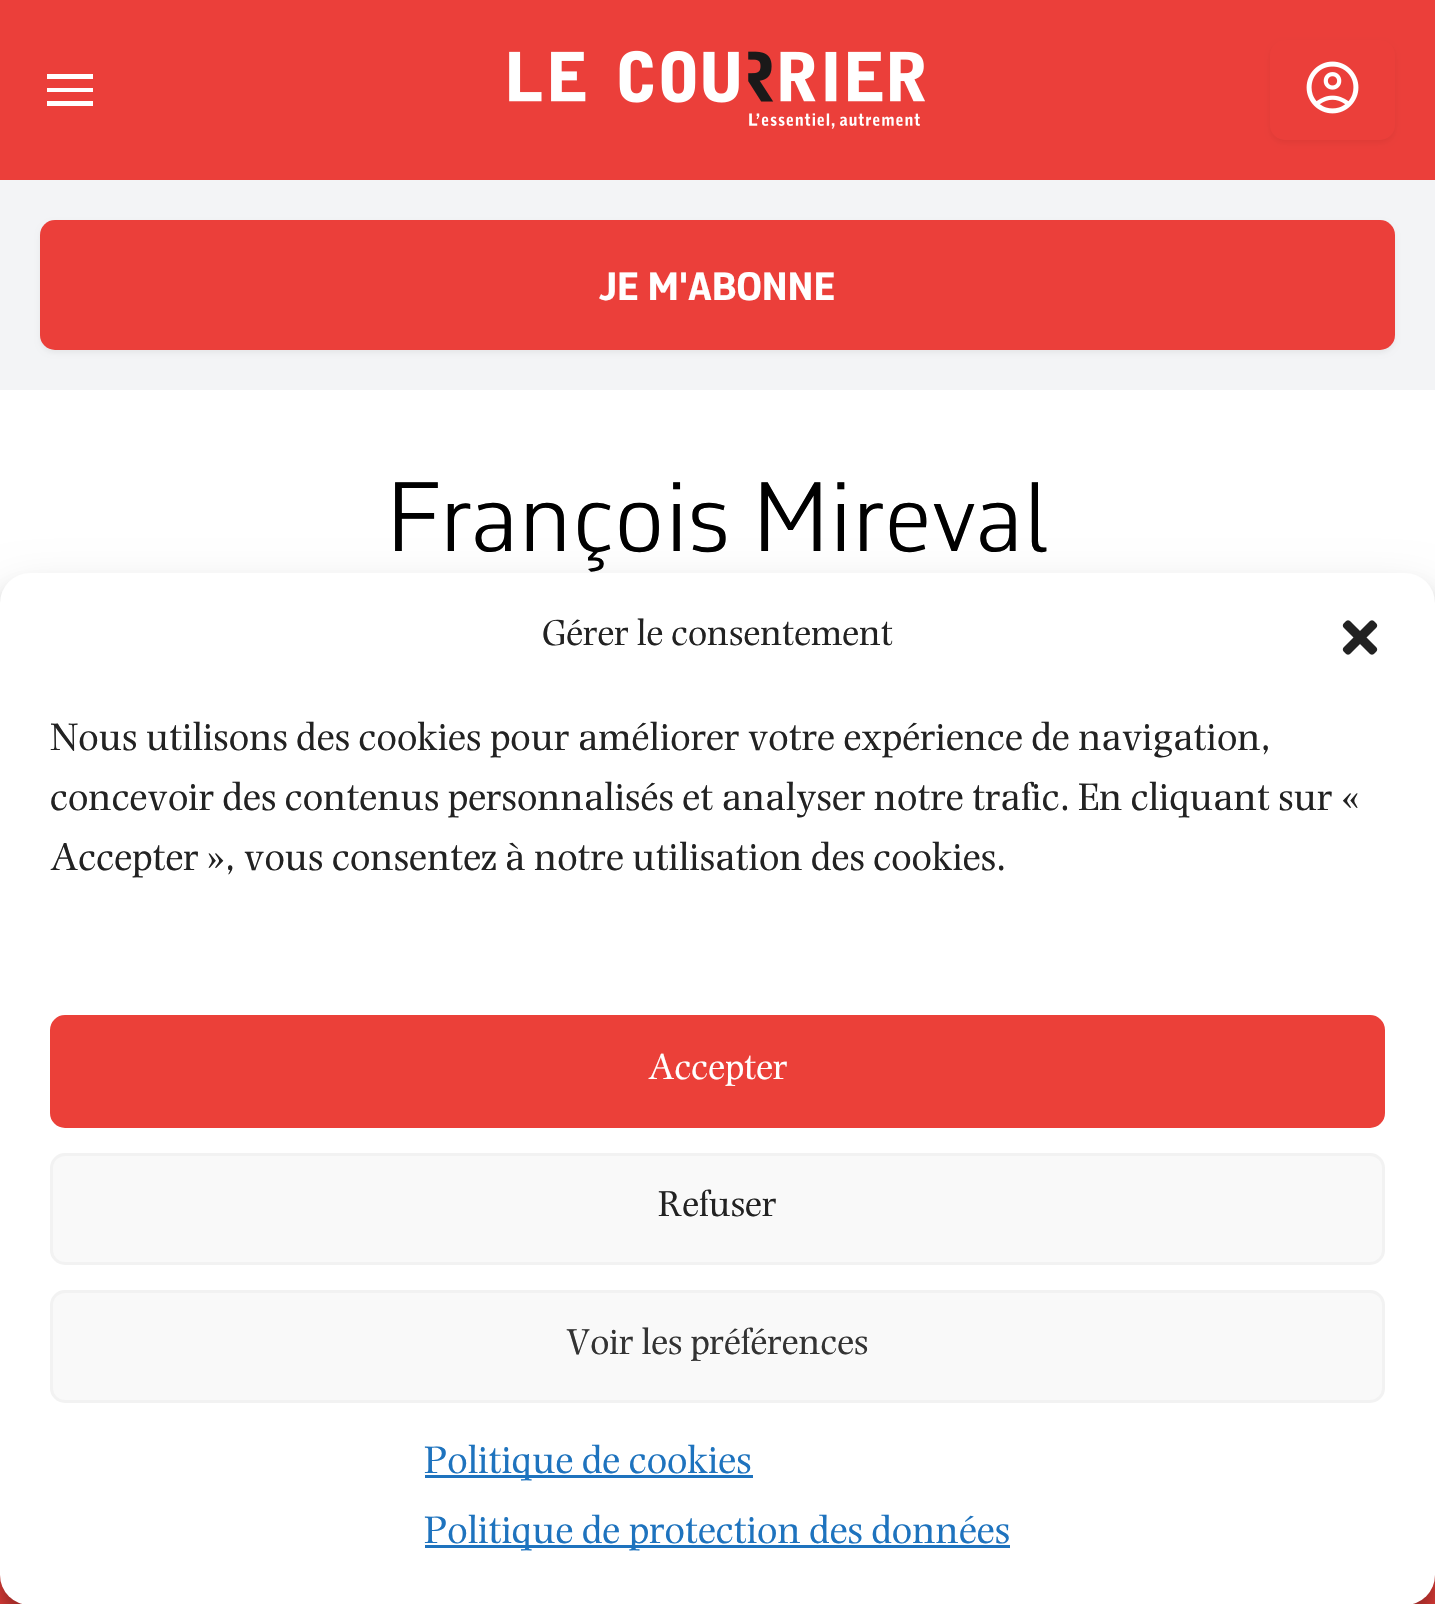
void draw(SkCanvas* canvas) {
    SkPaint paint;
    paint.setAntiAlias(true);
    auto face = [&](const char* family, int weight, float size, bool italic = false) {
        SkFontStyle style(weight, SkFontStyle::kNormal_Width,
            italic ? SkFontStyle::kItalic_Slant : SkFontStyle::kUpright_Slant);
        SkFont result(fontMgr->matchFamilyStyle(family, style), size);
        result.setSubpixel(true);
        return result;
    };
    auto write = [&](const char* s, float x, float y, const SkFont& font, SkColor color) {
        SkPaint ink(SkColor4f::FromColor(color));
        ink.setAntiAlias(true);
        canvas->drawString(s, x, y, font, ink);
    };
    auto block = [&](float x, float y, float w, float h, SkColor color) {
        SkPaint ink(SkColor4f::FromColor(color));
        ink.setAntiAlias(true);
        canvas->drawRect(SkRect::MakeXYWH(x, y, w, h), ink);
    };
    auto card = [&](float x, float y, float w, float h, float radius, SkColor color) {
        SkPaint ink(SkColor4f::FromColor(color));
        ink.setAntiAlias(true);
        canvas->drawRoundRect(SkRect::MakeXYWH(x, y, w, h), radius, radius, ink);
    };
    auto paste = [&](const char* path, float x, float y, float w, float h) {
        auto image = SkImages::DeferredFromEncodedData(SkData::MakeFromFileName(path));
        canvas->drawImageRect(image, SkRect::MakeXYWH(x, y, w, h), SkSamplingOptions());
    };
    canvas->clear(SK_ColorWHITE);
    block(0, 0, 1435, 180, SkColorSetRGB(235, 63, 58));
    paint.setColor(SK_ColorWHITE);
    canvas->drawPath(SkPathBuilder().moveTo(47, 106).lineTo(47, 101).lineTo(93, 101).lineTo(93, 106).close().moveTo(47, 92).lineTo(47, 88).lineTo(93, 88).lineTo(93, 92).close().moveTo(47, 79).lineTo(47, 74).lineTo(93, 74).lineTo(93, 79).close().detach(), paint);
    paste("pic1.png", 509, 50, 416, 79);
    paint.setColor(SkColorSetARGB(13, 0, 0, 0));
    paint.setMaskFilter(SkMaskFilter::MakeBlur(kNormal_SkBlurStyle, 2.5f));
    canvas->drawRoundRect(SkRect::MakeXYWH(1270, 43, 125, 100), 15, 15, paint);
    paint.setMaskFilter(nullptr);
    card(1270, 40, 125, 100, 15, SkColorSetRGB(235, 63, 58));
    paste("pic2.png", 1306, 61, 53, 53);
    block(0, 180, 1435, 210, SkColorSetRGB(243, 244, 246));
    paint.setMaskFilter(SkMaskFilter::MakeBlur(kNormal_SkBlurStyle, 2.5f));
    canvas->drawRoundRect(SkRect::MakeXYWH(40, 223, 1355, 130), 15, 15, paint);
    paint.setMaskFilter(nullptr);
    card(40, 220, 1355, 130, 15, SkColorSetRGB(235, 63, 58));
    auto kFont1 = face("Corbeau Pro", 700, 40);
    write("JE M'ABONNE", 599, 300, kFont1, SK_ColorWHITE);
    auto kFont2 = face("Corbeau Pro", 300, 100);
    write("François Mireval", 386, 551, kFont2, SK_ColorBLACK);
    block(0, 1575, 1435, 29, SkColorSetRGB(235, 63, 58));
    paint.setColor(SkColorSetARGB(59, 0, 0, 0));
    paint.setMaskFilter(SkMaskFilter::MakeBlur(kNormal_SkBlurStyle, 7.5f));
    canvas->drawRoundRect(SkRect::MakeXYWH(0, 588, 1435, 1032), 30, 30, paint);
    paint.setMaskFilter(nullptr);
    paint.setColor(SkColorSetARGB(48, 0, 0, 0));
    paint.setMaskFilter(SkMaskFilter::MakeBlur(kNormal_SkBlurStyle, 25));
    canvas->drawRoundRect(SkRect::MakeXYWH(0, 598, 1435, 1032), 30, 30, paint);
    paint.setMaskFilter(nullptr);
    card(0, 573, 1435, 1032, 30, SK_ColorWHITE);
    auto kFont3 = face("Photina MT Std", 400, 37.5f);
    write("Gérer le consentement", 542, 645, kFont3, SkColorSetRGB(34, 34, 34));
    paste("pic3.png", 1342, 620, 36, 35);
    auto kFont4 = face("Photina MT Std", 400, 40);
    write("Nous utilisons des cookies pour améliorer votre expérience de navigation,", 50, 750, kFont4, SkColorSetRGB(34, 34, 34));
    write("concevoir des contenus personnalisés et analyser notre trafic. En cliquant sur «", 50, 810, kFont4, SkColorSetRGB(34, 34, 34));
    write("Accepter », vous consentez à notre utilisation des cookies.", 50, 870, kFont4, SkColorSetRGB(34, 34, 34));
    paint.setColor(SkColorSetRGB(235, 64, 57));
    canvas->drawRoundRect(SkRect::MakeXYWH(51.5f, 1016.5f, 1332, 110), 13.5f, 13.5f, paint);
    paint.setStyle(SkPaint::kStroke_Style);
    paint.setStrokeWidth(3);
    canvas->drawRoundRect(SkRect::MakeXYWH(51.5f, 1016.5f, 1332, 110), 13.5f, 13.5f, paint);
    write("Accepter", 648, 1079, kFont3, SK_ColorWHITE);
    paint.setStyle(SkPaint::kFill_Style);
    paint.setColor(SkColorSetRGB(249, 249, 249));
    canvas->drawRoundRect(SkRect::MakeXYWH(51.5f, 1154.5f, 1332, 109), 13.5f, 13.5f, paint);
    paint.setStyle(SkPaint::kStroke_Style);
    paint.setColor(SkColorSetRGB(242, 242, 242));
    canvas->drawRoundRect(SkRect::MakeXYWH(51.5f, 1154.5f, 1332, 109), 13.5f, 13.5f, paint);
    write("Refuser", 658, 1216, kFont3, SkColorSetRGB(34, 34, 34));
    paint.setStyle(SkPaint::kFill_Style);
    paint.setColor(SkColorSetRGB(249, 249, 249));
    canvas->drawRoundRect(SkRect::MakeXYWH(51.5f, 1291.5f, 1332, 110), 13.5f, 13.5f, paint);
    paint.setStyle(SkPaint::kStroke_Style);
    paint.setColor(SkColorSetRGB(242, 242, 242));
    canvas->drawRoundRect(SkRect::MakeXYWH(51.5f, 1291.5f, 1332, 110), 13.5f, 13.5f, paint);
    write("Voir les préférences", 566, 1354, kFont3, SkColorSetRGB(51, 51, 51));
    block(425, 1475, 328, 3, SkColorSetRGB(30, 115, 190));
    write("Politique de cookies", 424, 1473, kFont4, SkColorSetRGB(30, 115, 190));
    block(425, 1545, 585, 3, SkColorSetRGB(30, 115, 190));
    write("Politique de protection des données", 424, 1543, kFont4, SkColorSetRGB(30, 115, 190));
}
